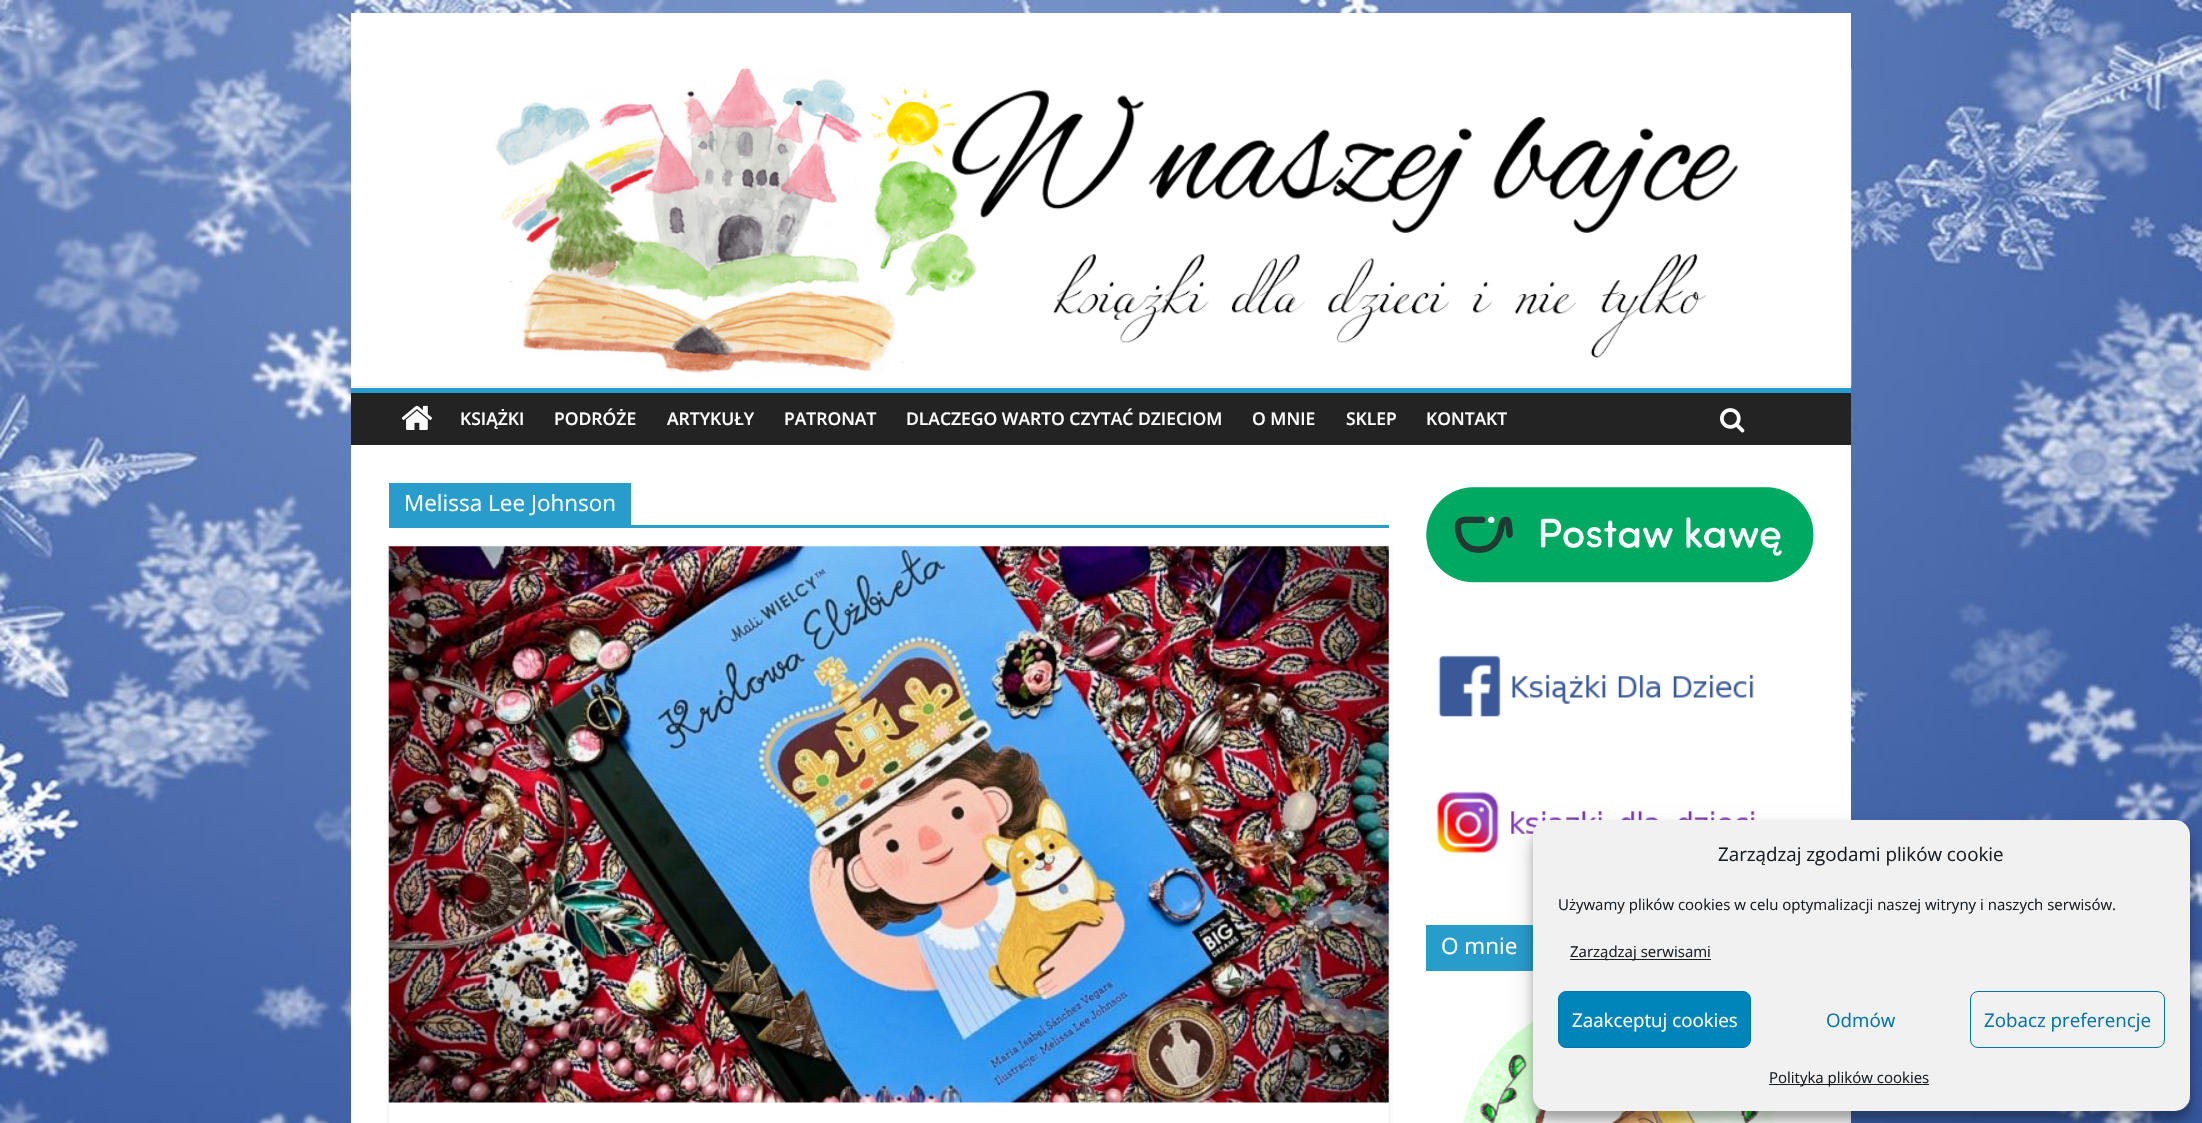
void draw(SkCanvas* canvas) {
    SkPaint paint;
    paint.setAntiAlias(true);
    auto face = [&](const char* family, int weight, float size, bool italic = false) {
        SkFontStyle style(weight, SkFontStyle::kNormal_Width,
            italic ? SkFontStyle::kItalic_Slant : SkFontStyle::kUpright_Slant);
        SkFont result(fontMgr->matchFamilyStyle(family, style), size);
        result.setSubpixel(true);
        return result;
    };
    auto write = [&](const char* s, float x, float y, const SkFont& font, SkColor color) {
        SkPaint ink(SkColor4f::FromColor(color));
        ink.setAntiAlias(true);
        canvas->drawString(s, x, y, font, ink);
    };
    auto block = [&](float x, float y, float w, float h, SkColor color) {
        SkPaint ink(SkColor4f::FromColor(color));
        ink.setAntiAlias(true);
        canvas->drawRect(SkRect::MakeXYWH(x, y, w, h), ink);
    };
    auto card = [&](float x, float y, float w, float h, float radius, SkColor color) {
        SkPaint ink(SkColor4f::FromColor(color));
        ink.setAntiAlias(true);
        canvas->drawRoundRect(SkRect::MakeXYWH(x, y, w, h), radius, radius, ink);
    };
    auto paste = [&](const char* path, float x, float y, float w, float h) {
        auto image = SkImages::DeferredFromEncodedData(SkData::MakeFromFileName(path));
        canvas->drawImageRect(image, SkRect::MakeXYWH(x, y, w, h), SkSamplingOptions());
    };
    canvas->clear(SK_ColorWHITE);
    paste("pic1.png", 0, 0, 2202, 1123);
    block(351, 13, 1500, 375, SK_ColorWHITE);
    block(351, 386, 1500, 1, SkColorSetRGB(234, 234, 234));
    paste("pic2.png", 352, 68, 1500, 319);
    block(351, 393, 1500, 52, SkColorSetRGB(35, 35, 35));
    block(351, 388, 1500, 5, SkColorSetRGB(40, 157, 204));
    paste("pic3.png", 401, 405, 31, 25);
    auto kFont1 = face("Open Sans", 600, 17.5f);
    write("KSIĄŻKI", 460, 425, kFont1, SK_ColorWHITE);
    write("PODRÓŻE", 554, 425, kFont1, SK_ColorWHITE);
    write("ARTYKUŁY", 667, 425, kFont1, SK_ColorWHITE);
    write("PATRONAT", 784, 425, kFont1, SK_ColorWHITE);
    write("DLACZEGO WARTO CZYTAĆ DZIECIOM", 906, 425, kFont1, SK_ColorWHITE);
    write("O MNIE", 1252, 425, kFont1, SK_ColorWHITE);
    write("SKLEP", 1346, 425, kFont1, SK_ColorWHITE);
    write("KONTAKT", 1426, 425, kFont1, SK_ColorWHITE);
    paste("pic4.png", 1720, 408, 25, 25);
    block(351, 445, 1500, 678, SK_ColorWHITE);
    block(389, 525, 1000, 3, SkColorSetRGB(40, 157, 204));
    block(389, 483, 242, 42, SkColorSetRGB(40, 157, 204));
    auto kFont2 = face("Open Sans", 400, 22.5f);
    write("Melissa Lee Johnson", 404, 511, kFont2, SK_ColorWHITE);
    canvas->save();
    canvas->clipPath(SkPathBuilder(SkPathFillType::kEvenOdd).moveTo(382, 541).lineTo(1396, 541).lineTo(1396, 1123).lineTo(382, 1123).close().moveTo(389, 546).lineTo(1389, 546).lineTo(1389, 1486).lineTo(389, 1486).close().detach(), true);
    paint.setColor(SkColorSetARGB(26, 0, 0, 0));
    paint.setMaskFilter(SkMaskFilter::MakeBlur(kNormal_SkBlurStyle, 2));
    canvas->drawRect(SkRect::MakeXYWH(389, 548, 1000, 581), paint);
    paint.setMaskFilter(nullptr);
    canvas->restore();
    paste("pic5.png", 388, 546, 1001, 557);
    paste("pic6.png", 1426, 487, 388, 96);
    paste("pic7.png", 1438, 655, 316, 62);
    paste("pic8.png", 1436, 791, 320, 63);
    block(1426, 925, 107, 46, SkColorSetRGB(40, 157, 204));
    write("O mnie", 1441, 954, kFont2, SK_ColorWHITE);
    paste("pic9.png", 1463, 996, 311, 127);
    paint.setColor(SkColorSetARGB(59, 0, 0, 0));
    paint.setMaskFilter(SkMaskFilter::MakeBlur(kNormal_SkBlurStyle, 4));
    canvas->drawRoundRect(SkRect::MakeXYWH(1533, 828, 657, 291), 15, 15, paint);
    paint.setMaskFilter(nullptr);
    paint.setColor(SkColorSetARGB(48, 0, 0, 0));
    paint.setMaskFilter(SkMaskFilter::MakeBlur(kNormal_SkBlurStyle, 12.5f));
    canvas->drawRoundRect(SkRect::MakeXYWH(1533, 833, 657, 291), 15, 15, paint);
    paint.setMaskFilter(nullptr);
    card(1533, 820, 657, 291, 15, SkColorSetRGB(241, 241, 241));
    auto kFont3 = face("Open Sans", 400, 18.75f);
    write("Zarządzaj zgodami plików cookie", 1718, 861, kFont3, SkColorSetRGB(25, 30, 35));
    auto kFont4 = face("Open Sans", 400, 15);
    write("Używamy plików cookies w celu optymalizacji naszej witryny i naszych serwisów.", 1558, 910, kFont4, SkColorSetRGB(25, 30, 35));
    block(1570, 959, 141, 1, SkColorSetRGB(25, 30, 35));
    write("Zarządzaj serwisami", 1570, 957, kFont4, SkColorSetRGB(25, 30, 35));
    paint.setColor(SkColorSetRGB(0, 133, 186));
    canvas->drawRoundRect(SkRect::MakeXYWH(1558.5f, 991.5f, 192, 56), 7.5f, 7.5f, paint);
    paint.setStyle(SkPaint::kStroke_Style);
    paint.setStrokeWidth(1);
    paint.setColor(SkColorSetRGB(0, 115, 170));
    canvas->drawRoundRect(SkRect::MakeXYWH(1558.5f, 991.5f, 192, 56), 7.5f, 7.5f, paint);
    write("Zaakceptuj cookies", 1572, 1027, kFont3, SK_ColorWHITE);
    write("Odmów", 1826, 1027, kFont3, SkColorSetRGB(0, 115, 170));
    canvas->drawRoundRect(SkRect::MakeXYWH(1970.5f, 991.5f, 194, 56), 7.5f, 7.5f, paint);
    write("Zobacz preferencje", 1984, 1027, kFont3, SkColorSetRGB(0, 115, 170));
    block(1769, 1084, 160, 1, SkColorSetRGB(25, 30, 35));
    write("Polityka plików cookies", 1769, 1083, kFont4, SkColorSetRGB(25, 30, 35));
}
